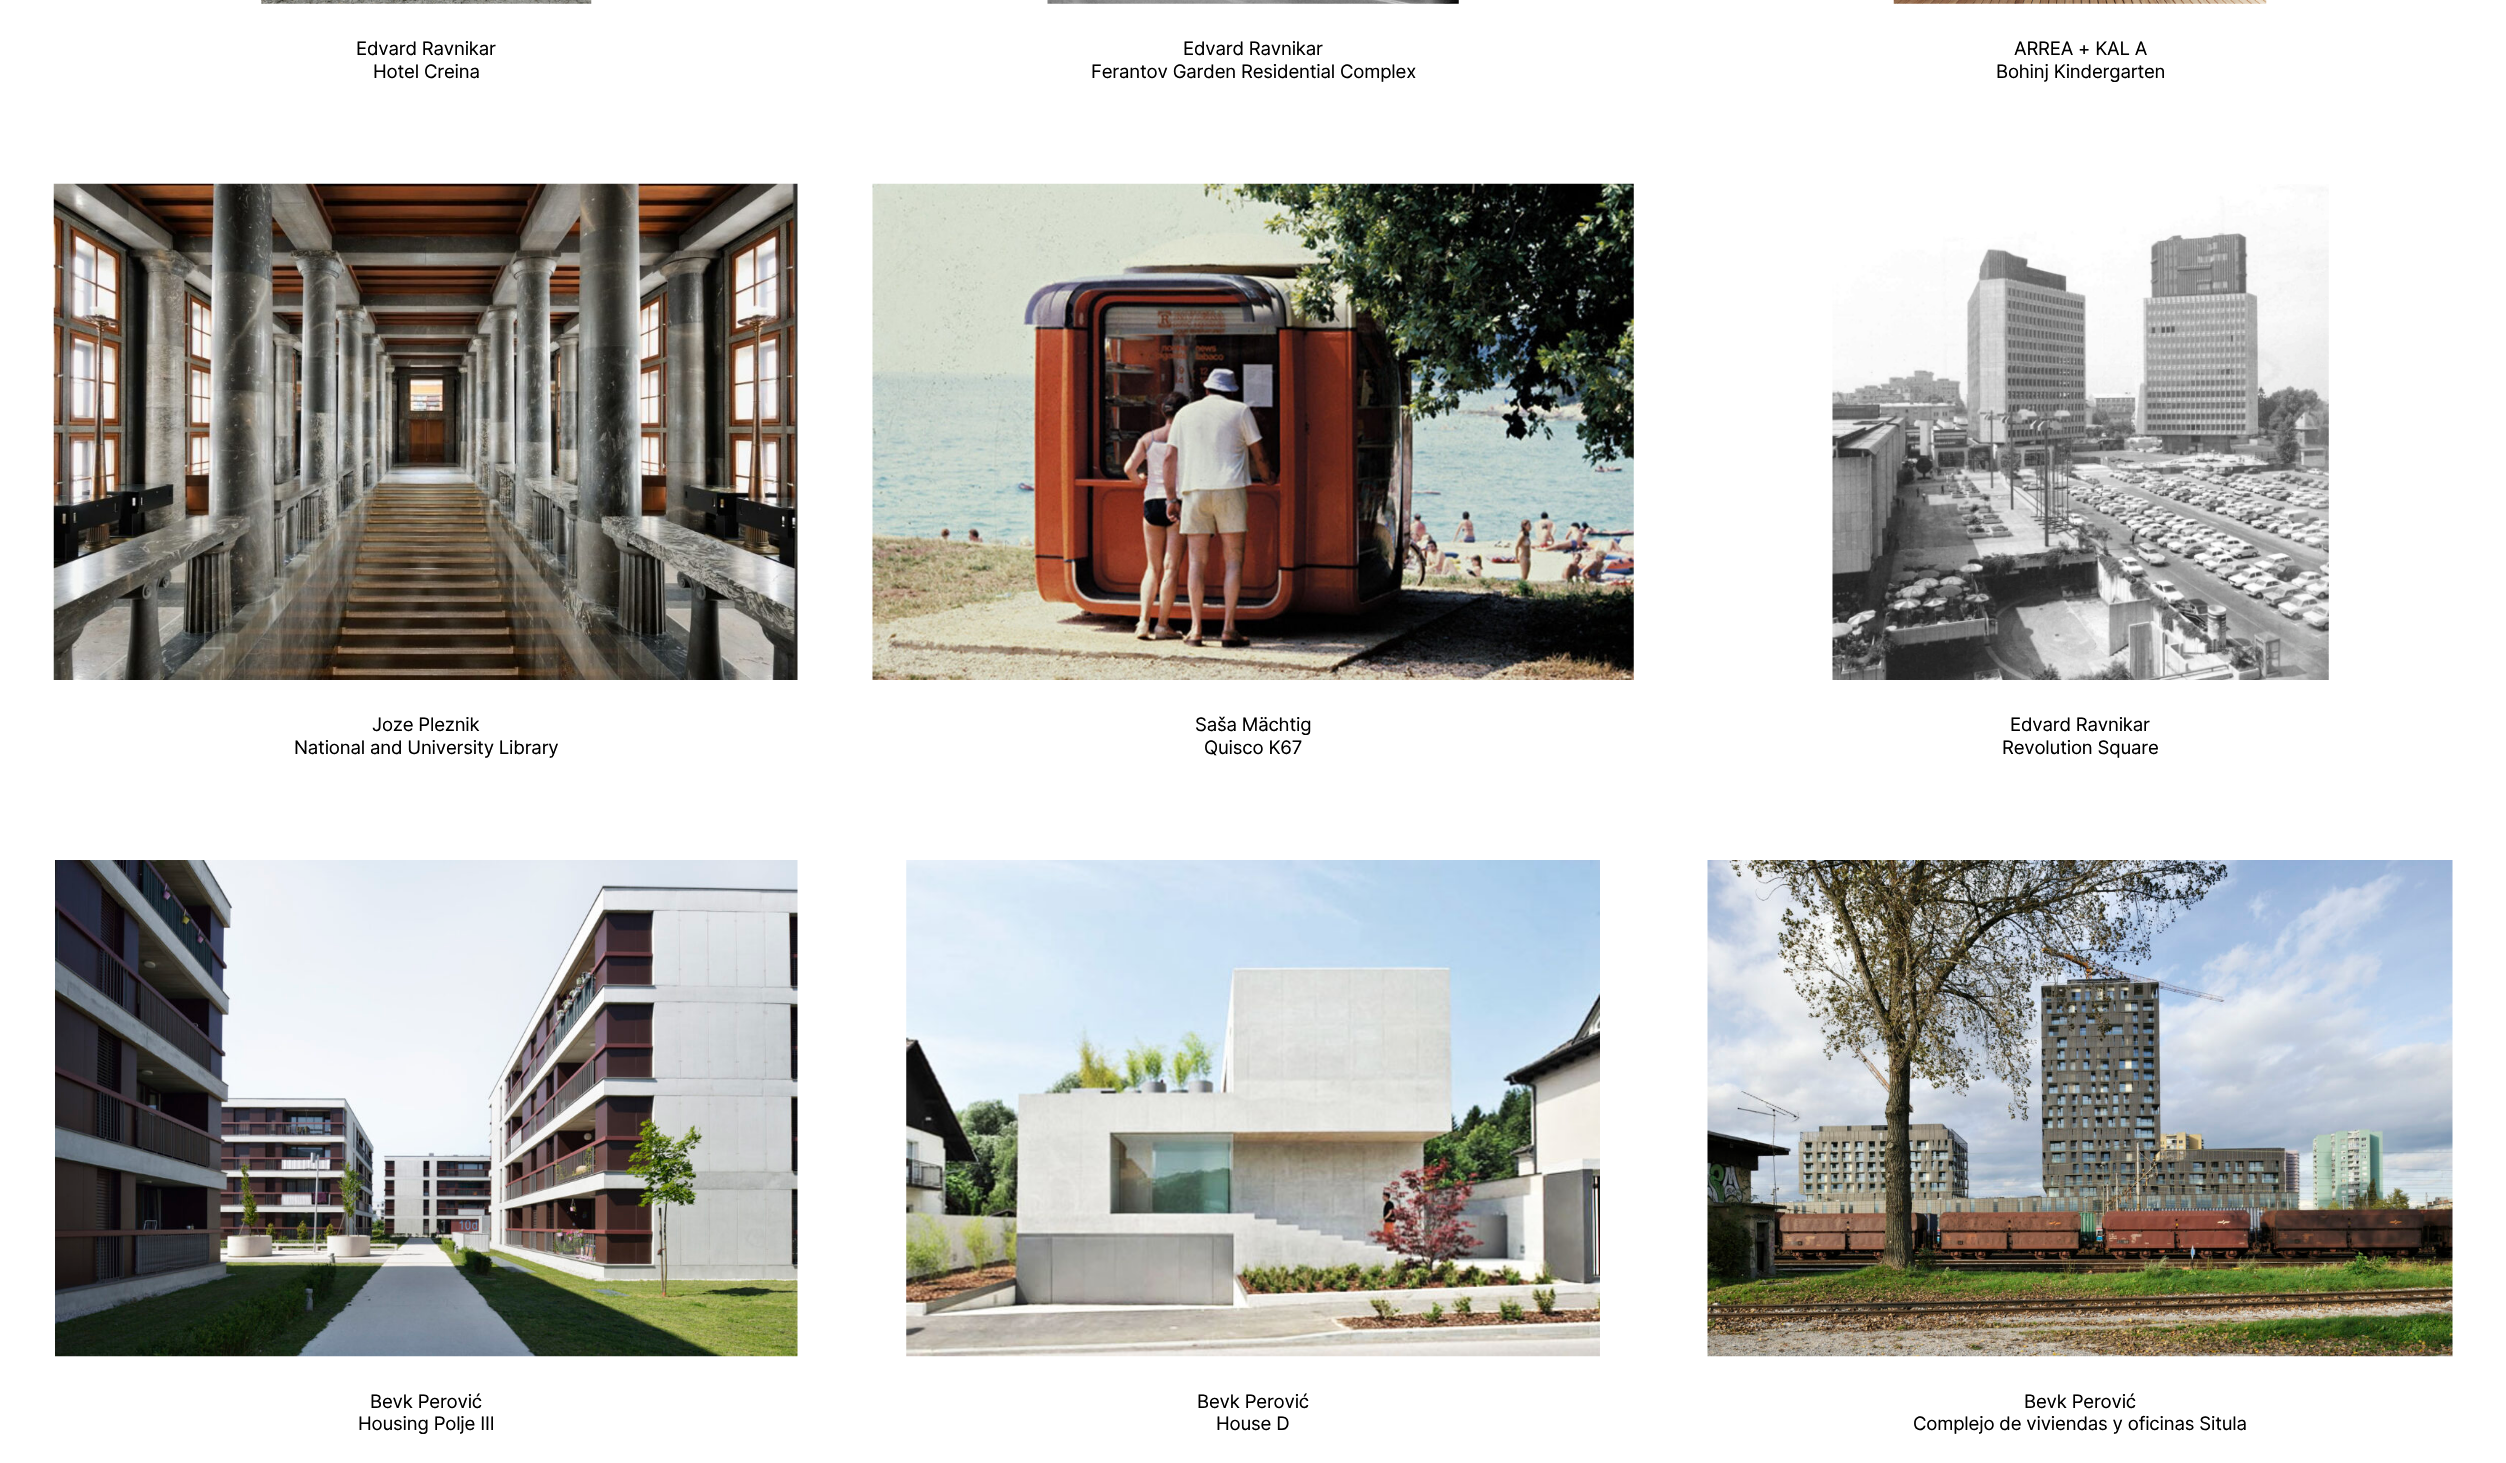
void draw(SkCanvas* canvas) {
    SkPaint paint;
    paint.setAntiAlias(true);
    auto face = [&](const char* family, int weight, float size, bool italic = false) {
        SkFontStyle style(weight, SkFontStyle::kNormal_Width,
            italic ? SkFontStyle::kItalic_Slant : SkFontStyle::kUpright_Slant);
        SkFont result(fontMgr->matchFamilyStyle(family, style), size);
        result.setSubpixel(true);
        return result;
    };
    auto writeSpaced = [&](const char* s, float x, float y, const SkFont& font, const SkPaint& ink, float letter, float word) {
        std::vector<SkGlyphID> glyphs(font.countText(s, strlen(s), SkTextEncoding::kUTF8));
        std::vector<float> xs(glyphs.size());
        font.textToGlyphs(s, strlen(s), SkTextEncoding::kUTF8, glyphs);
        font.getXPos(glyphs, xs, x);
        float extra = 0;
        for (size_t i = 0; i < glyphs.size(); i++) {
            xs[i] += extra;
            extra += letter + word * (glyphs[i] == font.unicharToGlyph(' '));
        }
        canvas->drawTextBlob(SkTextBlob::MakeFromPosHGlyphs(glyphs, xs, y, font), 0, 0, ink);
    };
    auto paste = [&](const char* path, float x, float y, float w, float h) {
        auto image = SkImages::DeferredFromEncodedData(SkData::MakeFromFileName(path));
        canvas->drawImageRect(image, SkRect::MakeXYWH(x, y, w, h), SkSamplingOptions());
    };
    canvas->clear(SK_ColorWHITE);
    paste("pic1.png", 261, 0, 331, 4);
    auto kFont1 = face("Inter", 400, 18.6f);
    paint.setColor(SK_ColorBLACK);
    writeSpaced("Edvard Ravnikar", 356, 55, kFont1, paint, -0.2f, 0);
    writeSpaced("Hotel Creina", 373, 78, kFont1, paint, -0.2f, 0);
    paste("pic2.png", 1047, 0, 412, 4);
    writeSpaced("Edvard Ravnikar", 1183, 55, kFont1, paint, -0.2f, 0);
    writeSpaced("Ferantov Garden Residential Complex", 1091, 78, kFont1, paint, -0.2f, 0);
    paste("pic3.png", 1893, 0, 374, 4);
    writeSpaced("ARREA + KAL A", 2014, 55, kFont1, paint, -0.2f, 0);
    writeSpaced("Bohinj Kindergarten", 1996, 78, kFont1, paint, -0.2f, 0);
    paste("pic4.png", 53, 183, 745, 497);
    writeSpaced("Joze Pleznik", 372, 731, kFont1, paint, -0.2f, 0);
    writeSpaced("National and University Library", 294, 754, kFont1, paint, -0.2f, 0);
    paste("pic5.png", 872, 183, 762, 497);
    writeSpaced("Saša Mächtig", 1195, 731, kFont1, paint, -0.2f, 0);
    writeSpaced("Quisco K67", 1204, 754, kFont1, paint, -0.2f, 0);
    paste("pic6.png", 1832, 184, 497, 496);
    writeSpaced("Edvard Ravnikar", 2010, 731, kFont1, paint, -0.2f, 0);
    writeSpaced("Revolution Square", 2002, 754, kFont1, paint, -0.2f, 0);
    paste("pic7.png", 55, 860, 743, 497);
    writeSpaced("Bevk Perović", 370, 1408, kFont1, paint, -0.2f, 0);
    writeSpaced("Housing Polje III", 358, 1430, kFont1, paint, -0.2f, 0);
    paste("pic8.png", 906, 860, 694, 497);
    writeSpaced("Bevk Perović", 1197, 1408, kFont1, paint, -0.2f, 0);
    writeSpaced("House D", 1216, 1430, kFont1, paint, -0.2f, 0);
    paste("pic9.png", 1707, 860, 746, 497);
    writeSpaced("Bevk Perović", 2024, 1408, kFont1, paint, -0.2f, 0);
    writeSpaced("Complejo de viviendas y oficinas Situla", 1913, 1430, kFont1, paint, -0.2f, 0);
}
